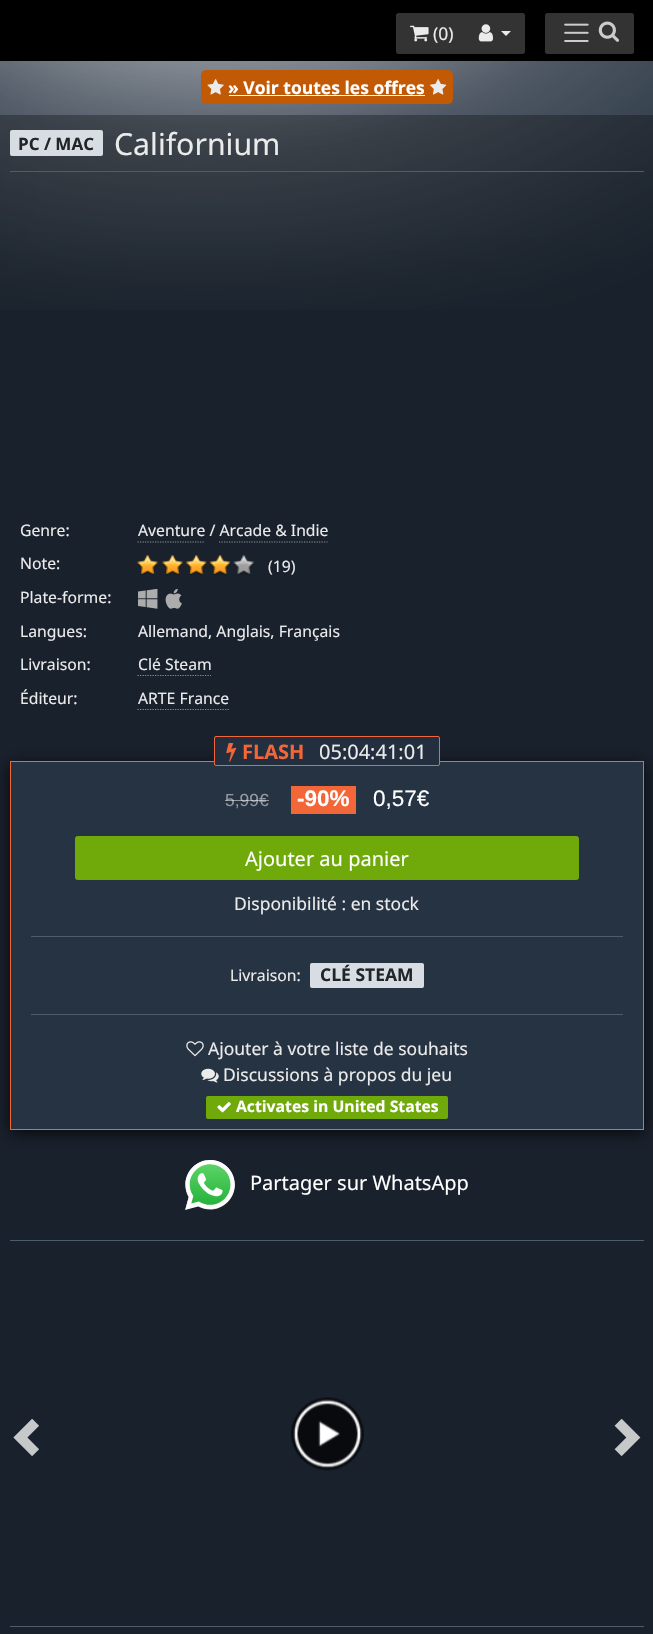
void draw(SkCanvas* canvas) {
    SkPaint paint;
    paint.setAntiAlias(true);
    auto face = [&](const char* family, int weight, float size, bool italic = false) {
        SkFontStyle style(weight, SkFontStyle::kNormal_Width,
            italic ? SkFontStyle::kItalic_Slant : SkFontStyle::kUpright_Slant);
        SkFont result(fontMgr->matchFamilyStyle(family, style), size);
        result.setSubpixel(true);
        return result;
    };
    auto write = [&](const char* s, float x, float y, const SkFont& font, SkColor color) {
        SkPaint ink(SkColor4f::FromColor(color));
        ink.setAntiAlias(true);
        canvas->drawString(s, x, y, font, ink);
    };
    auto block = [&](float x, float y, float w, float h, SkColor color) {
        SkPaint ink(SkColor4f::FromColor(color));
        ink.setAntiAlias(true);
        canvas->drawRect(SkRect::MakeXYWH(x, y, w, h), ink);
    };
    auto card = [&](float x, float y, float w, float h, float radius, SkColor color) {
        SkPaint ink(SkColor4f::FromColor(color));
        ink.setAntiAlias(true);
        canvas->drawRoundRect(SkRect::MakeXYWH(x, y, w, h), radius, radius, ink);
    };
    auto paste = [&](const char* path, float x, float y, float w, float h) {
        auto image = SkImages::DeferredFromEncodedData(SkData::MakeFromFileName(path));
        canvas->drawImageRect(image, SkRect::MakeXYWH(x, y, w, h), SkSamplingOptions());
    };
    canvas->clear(SkColorSetRGB(35, 47, 62));
    paste("pic1.png", 0, 61, 653, 249);
    block(0, 0, 653, 61, SK_ColorBLACK);
    paint.setColor(SkColorSetRGB(51, 51, 51));
    canvas->drawPath(SkPathBuilder().moveTo(398.5f, 13).lineTo(466, 13).lineTo(466, 54).lineTo(398.5f, 54).cubicTo(397, 54, 396, 53, 396, 51.5f).lineTo(396, 15.5f).cubicTo(396, 14, 397, 13, 398.5f, 13).close().detach(), paint);
    paste("pic2.png", 410, 25, 19, 17);
    auto kFont1 = face("Noto Sans", 400, 17.5f);
    write("(0)", 433, 40, kFont1, SkColorSetRGB(235, 235, 235));
    canvas->drawPath(SkPathBuilder().moveTo(465, 13).lineTo(522.5f, 13).cubicTo(524, 13, 525, 14, 525, 15.5f).lineTo(525, 51.5f).cubicTo(525, 53, 524, 54, 522.5f, 54).lineTo(465, 54).close().detach(), paint);
    paste("pic3.png", 478, 24, 15, 18);
    paint.setColor(SkColorSetRGB(235, 235, 235));
    canvas->drawPath(SkPathBuilder().moveTo(501, 31).lineTo(511, 31).lineTo(506, 36).close().detach(), paint);
    card(545, 13, 89, 41, 2.5f, SkColorSetRGB(51, 51, 51));
    paste("pic4.png", 564, 23, 25, 19);
    paste("pic5.png", 598, 21, 21, 21);
    card(201, 70, 252, 34, 5, SkColorSetRGB(194, 89, 4));
    paste("pic6.png", 207, 79, 17, 16);
    auto kFont2 = face("Noto Sans", 700, 17.5f);
    write("» Voir toutes les offres", 228, 94, kFont2, SK_ColorWHITE);
    block(229, 95, 196, 1, SK_ColorWHITE);
    paste("pic7.png", 430, 79, 17, 16);
    block(0, 115, 653, 1519, SkColorSetARGB(77, 0, 0, 0));
    card(10, 130, 93, 26, 2, SkColorSetRGB(215, 221, 226));
    auto kFont3 = face("Noto Sans", 700, 17);
    write("PC / MAC", 18, 150, kFont3, SkColorSetRGB(33, 37, 41));
    block(10, 171, 634, 1, SkColorSetRGB(78, 93, 108));
    auto kFont4 = face("Noto Sans", 400, 30.25f);
    write("Californium", 114, 155, kFont4, SkColorSetRGB(235, 235, 235));
    auto kFont5 = face("Noto Sans", 400, 15.75f);
    write("Genre:", 20, 536, kFont5, SkColorSetRGB(235, 235, 235));
    write("Aventure / Arcade & Indie", 138, 536, kFont5, SkColorSetRGB(235, 235, 235));
    paint.setStyle(SkPaint::kStroke_Style);
    paint.setStrokeWidth(1.2f);
    paint.setColor(SkColorSetRGB(140, 144, 149));
    paint.setPathEffect(SkDashPathEffect::Make({{1.25f, 1.25f}}, 0));
    canvas->drawPath(SkPathBuilder().moveTo(137.5f, 542).lineTo(205, 542).detach(), paint);
    paint.setPathEffect(nullptr);
    paint.setPathEffect(SkDashPathEffect::Make({{1.25f, 1.25f}}, 0));
    canvas->drawPath(SkPathBuilder().moveTo(219, 542).lineTo(327.5f, 542).detach(), paint);
    paint.setPathEffect(nullptr);
    write("Note:", 20, 569, kFont5, SkColorSetRGB(235, 235, 235));
    paste("pic8.png", 137, 555, 21, 20);
    paste("pic8.png", 162, 555, 21, 20);
    paste("pic9.png", 186, 555, 21, 20);
    paste("pic10.png", 210, 555, 20, 20);
    paste("pic11.png", 233, 555, 21, 20);
    write("(19)", 268, 572, kFont5, SkColorSetRGB(235, 235, 235));
    write("Plate-forme:", 20, 603, kFont5, SkColorSetRGB(235, 235, 235));
    paste("pic12.png", 138, 589, 20, 20);
    paste("pic13.png", 165, 589, 17, 20);
    write("Langues:", 20, 637, kFont5, SkColorSetRGB(235, 235, 235));
    write("Allemand, Anglais, Français", 138, 637, kFont5, SkColorSetRGB(235, 235, 235));
    write("Livraison:", 20, 670, kFont5, SkColorSetRGB(235, 235, 235));
    write("Clé Steam", 138, 670, kFont5, SkColorSetRGB(235, 235, 235));
    paint.setPathEffect(SkDashPathEffect::Make({{1.25f, 1.25f}}, 0));
    canvas->drawPath(SkPathBuilder().moveTo(137.5f, 675.5f).lineTo(211, 675.5f).detach(), paint);
    paint.setPathEffect(nullptr);
    write("Éditeur:", 20, 704, kFont5, SkColorSetRGB(235, 235, 235));
    write("ARTE France", 138, 704, kFont5, SkColorSetRGB(235, 235, 235));
    paint.setPathEffect(SkDashPathEffect::Make({{1.25f, 1.25f}}, 0));
    canvas->drawPath(SkPathBuilder().moveTo(137.5f, 709.5f).lineTo(229, 709.5f).detach(), paint);
    paint.setPathEffect(nullptr);
    paint.setStyle(SkPaint::kFill_Style);
    paint.setColor(SkColorSetARGB(191, 0, 0, 0));
    paint.setMaskFilter(SkMaskFilter::MakeBlur(kNormal_SkBlurStyle, 7.5f));
    canvas->drawRect(SkRect::MakeXYWH(10, 764, 634, 369), paint);
    paint.setMaskFilter(nullptr);
    paint.setColor(SkColorSetRGB(38, 51, 67));
    canvas->drawRect(SkRect::MakeXYWH(10.5f, 761.5f, 633, 368), paint);
    paint.setStyle(SkPaint::kStroke_Style);
    paint.setStrokeWidth(1);
    paint.setColor(SkColorSetRGB(242, 102, 56));
    canvas->drawRect(SkRect::MakeXYWH(10.5f, 761.5f, 633, 368), paint);
    paint.setStyle(SkPaint::kFill_Style);
    paint.setColor(SkColorSetRGB(35, 47, 62));
    canvas->drawRoundRect(SkRect::MakeXYWH(214.5f, 736.5f, 225, 29), 1.5f, 1.5f, paint);
    paint.setStyle(SkPaint::kStroke_Style);
    paint.setColor(SkColorSetRGB(242, 102, 56));
    canvas->drawRoundRect(SkRect::MakeXYWH(214.5f, 736.5f, 225, 29), 1.5f, 1.5f, paint);
    paste("pic14.png", 226, 743, 11, 19);
    auto kFont6 = face("Noto Sans", 700, 20);
    write("FLASH", 242, 759, kFont6, SkColorSetRGB(242, 102, 56));
    auto kFont7 = face("Noto Sans", 400, 20);
    write("05:04:41:01", 319, 759, kFont7, SkColorSetRGB(235, 235, 235));
    auto kFont8 = face("Liberation Sans", 400, 17.5f);
    write("5,99€", 225, 806, kFont8, SkColorSetRGB(147, 153, 161));
    block(225, 800, 44, 1, SkColorSetARGB(128, 255, 255, 255));
    block(291, 786, 65, 28, SkColorSetRGB(242, 102, 56));
    auto kFont9 = face("Liberation Sans", 700, 22.5f);
    write("-90%", 297, 806, kFont9, SK_ColorWHITE);
    auto kFont10 = face("Liberation Sans", 400, 22.5f);
    write("0,57€", 373, 806, kFont10, SK_ColorWHITE);
    paint.setStyle(SkPaint::kFill_Style);
    paint.setColor(SkColorSetRGB(111, 170, 10));
    canvas->drawRoundRect(SkRect::MakeXYWH(75.5f, 836.5f, 503, 43), 2, 2, paint);
    paint.setStyle(SkPaint::kStroke_Style);
    canvas->drawRoundRect(SkRect::MakeXYWH(75.5f, 836.5f, 503, 43), 2, 2, paint);
    write("Ajouter au panier", 245, 866, kFont7, SK_ColorWHITE);
    write("Disponibilité : en stock", 234, 910, kFont1, SkColorSetRGB(235, 235, 235));
    block(31, 936, 592, 1, SkColorSetRGB(78, 93, 108));
    write("Livraison:", 230, 981, kFont5, SkColorSetRGB(235, 235, 235));
    card(310, 963, 114, 25, 2, SkColorSetRGB(215, 221, 226));
    write("CLÉ STEAM", 320, 981, kFont2, SkColorSetRGB(33, 37, 41));
    block(31, 1014, 592, 1, SkColorSetRGB(78, 93, 108));
    paste("pic15.png", 186, 1041, 18, 16);
    write("Ajouter à votre liste de souhaits", 208, 1055, kFont1, SkColorSetRGB(235, 235, 235));
    paste("pic16.png", 201, 1068, 18, 15);
    write("Discussions à propos du jeu", 223, 1081, kFont1, SkColorSetRGB(235, 235, 235));
    card(206, 1096, 242, 23, 2, SkColorSetRGB(111, 170, 10));
    paste("pic17.png", 217, 1102, 14, 11);
    auto kFont11 = face("Noto Sans", 700, 15.75f);
    write("Activates in United States", 236, 1112, kFont11, SK_ColorWHITE);
    paste("pic18.png", 185, 1160, 50, 50);
    write("Partager sur WhatsApp", 250, 1190, kFont7, SK_ColorWHITE);
    block(10, 1240, 634, 1, SkColorSetRGB(78, 93, 108));
    block(10, 1626, 634, 1, SkColorSetRGB(78, 93, 108));
    paste("pic19.png", 13, 1419, 26, 37);
    paste("pic20.png", 291, 1397, 73, 74);
    paste("pic21.png", 614, 1419, 27, 37);
}
